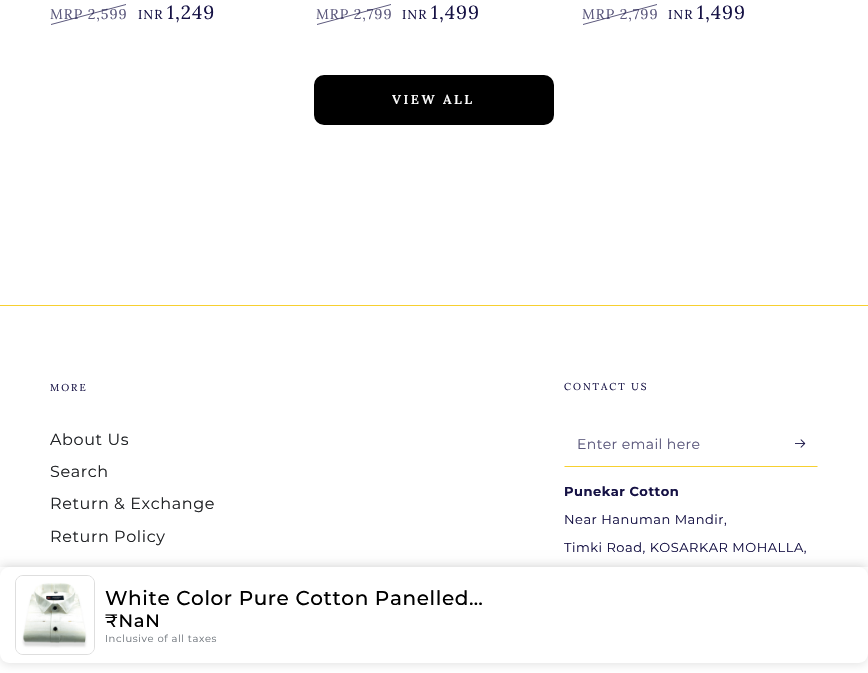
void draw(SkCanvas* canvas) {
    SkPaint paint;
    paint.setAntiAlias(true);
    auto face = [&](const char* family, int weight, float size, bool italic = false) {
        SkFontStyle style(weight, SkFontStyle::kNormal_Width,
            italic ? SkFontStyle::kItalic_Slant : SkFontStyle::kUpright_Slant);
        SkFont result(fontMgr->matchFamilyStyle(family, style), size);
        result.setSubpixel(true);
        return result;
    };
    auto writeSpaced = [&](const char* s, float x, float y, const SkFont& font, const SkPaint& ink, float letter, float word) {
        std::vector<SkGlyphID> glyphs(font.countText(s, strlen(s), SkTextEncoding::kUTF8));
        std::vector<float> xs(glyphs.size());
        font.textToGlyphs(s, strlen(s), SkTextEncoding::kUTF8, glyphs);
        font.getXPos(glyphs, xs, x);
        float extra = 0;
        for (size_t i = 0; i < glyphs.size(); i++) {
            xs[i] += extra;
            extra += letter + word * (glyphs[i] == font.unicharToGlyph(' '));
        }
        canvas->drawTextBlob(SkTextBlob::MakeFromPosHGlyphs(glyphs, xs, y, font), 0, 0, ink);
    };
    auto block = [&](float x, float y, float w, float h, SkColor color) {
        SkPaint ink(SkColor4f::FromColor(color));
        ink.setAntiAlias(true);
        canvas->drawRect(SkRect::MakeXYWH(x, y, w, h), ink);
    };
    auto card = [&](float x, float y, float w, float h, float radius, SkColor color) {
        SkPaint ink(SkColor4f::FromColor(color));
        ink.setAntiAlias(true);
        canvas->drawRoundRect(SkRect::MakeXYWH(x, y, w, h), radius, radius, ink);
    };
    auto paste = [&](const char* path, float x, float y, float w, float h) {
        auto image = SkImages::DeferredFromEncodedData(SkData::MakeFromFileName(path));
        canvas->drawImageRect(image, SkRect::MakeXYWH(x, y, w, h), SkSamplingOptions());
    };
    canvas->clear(SK_ColorWHITE);
    auto kFont1 = face("Lora", 400, 14);
    paint.setColor(SkColorSetRGB(91, 88, 124));
    writeSpaced("MRP 2,599", 50, 19, kFont1, paint, 1, 0);
    paint.setColor(SkColorSetARGB(179, 21, 17, 68));
    canvas->drawPath(SkPathBuilder().moveTo(51, 24).lineTo(126, 4).lineTo(126, 5).lineTo(51, 25).close().detach(), paint);
    auto kFont2 = face("Lora", 400, 13);
    paint.setColor(SkColorSetRGB(21, 17, 68));
    writeSpaced("INR", 138, 19, kFont2, paint, 1, 0);
    auto kFont3 = face("Lora", 400, 19);
    writeSpaced("1,249", 167, 19, kFont3, paint, 1, 0);
    paint.setColor(SkColorSetRGB(91, 88, 124));
    writeSpaced("MRP 2,799", 316, 19, kFont1, paint, 1, 0);
    paint.setColor(SkColorSetARGB(179, 21, 17, 68));
    canvas->drawPath(SkPathBuilder().moveTo(317, 24).lineTo(391, 4).lineTo(391, 5).lineTo(317, 25).close().detach(), paint);
    paint.setColor(SkColorSetRGB(21, 17, 68));
    writeSpaced("INR", 402, 19, kFont2, paint, 1, 0);
    writeSpaced("1,499", 431, 19, kFont3, paint, 1, 0);
    paint.setColor(SkColorSetRGB(91, 88, 124));
    writeSpaced("MRP 2,799", 582, 19, kFont1, paint, 1, 0);
    paint.setColor(SkColorSetARGB(179, 21, 17, 68));
    canvas->drawPath(SkPathBuilder().moveTo(583, 24).lineTo(657, 4).lineTo(657, 5).lineTo(583, 25).close().detach(), paint);
    paint.setColor(SkColorSetRGB(21, 17, 68));
    writeSpaced("INR", 668, 19, kFont2, paint, 1, 0);
    writeSpaced("1,499", 697, 19, kFont3, paint, 1, 0);
    paint.setColor(SK_ColorBLACK);
    canvas->drawRoundRect(SkRect::MakeXYWH(315, 76, 238, 48), 9, 9, paint);
    paint.setStyle(SkPaint::kStroke_Style);
    paint.setStrokeWidth(2);
    canvas->drawRoundRect(SkRect::MakeXYWH(315, 76, 238, 48), 9, 9, paint);
    auto kFont4 = face("Lora", 600, 13);
    paint.setStyle(SkPaint::kFill_Style);
    paint.setColor(SK_ColorWHITE);
    writeSpaced("VIEW ALL", 392, 104, kFont4, paint, 2.5f, 0);
    block(0, 305, 868, 1, SkColorSetRGB(247, 208, 48));
    auto kFont5 = face("Lora", 400, 10);
    paint.setColor(SkColorSetRGB(21, 17, 68));
    writeSpaced("MORE", 50, 391, kFont5, paint, 2, 0);
    auto kFont6 = face("Montserrat", 400, 16);
    paint.setColor(SkColorSetRGB(33, 35, 38));
    writeSpaced("About Us", 50, 445, kFont6, paint, 0.6f, 0);
    writeSpaced("Search", 50, 477, kFont6, paint, 0.6f, 0);
    writeSpaced("Return & Exchange", 50, 509, kFont6, paint, 0.6f, 0);
    writeSpaced("Return Policy", 50, 542, kFont6, paint, 0.6f, 0);
    paint.setColor(SkColorSetRGB(21, 17, 68));
    writeSpaced("CONTACT US", 564, 390, kFont5, paint, 2, 0);
    paint.setColor(SkColorSetRGB(247, 208, 48));
    canvas->drawPath(SkPathBuilder().moveTo(818, 467).lineTo(564, 467).lineTo(565, 466).lineTo(817, 466).close().detach(), paint);
    auto kFont7 = face("Montserrat", 400, 14);
    paint.setColor(SkColorSetRGB(91, 88, 124));
    writeSpaced("Enter email here", 577, 449, kFont7, paint, 0.4f, 0);
    paste("pic1.png", 795, 439, 11, 9);
    auto kFont8 = face("Montserrat", 700, 13);
    paint.setColor(SkColorSetRGB(21, 17, 68));
    writeSpaced("Punekar Cotton", 564, 496, kFont8, paint, 0.5f, 0);
    auto kFont9 = face("Montserrat", 400, 13);
    writeSpaced("Near Hanuman Mandir,", 564, 524, kFont9, paint, 0.5f, 0);
    writeSpaced("Timki Road, KOSARKAR MOHALLA,", 564, 552, kFont9, paint, 0.5f, 0);
    paint.setColor(SkColorSetARGB(26, 0, 0, 0));
    paint.setMaskFilter(SkMaskFilter::MakeBlur(kNormal_SkBlurStyle, 5));
    canvas->drawRect(SkRect::MakeXYWH(0, 565, 868, 106), paint);
    paint.setMaskFilter(nullptr);
    block(0, 567, 868, 106, SK_ColorWHITE);
    paint.setMaskFilter(SkMaskFilter::MakeBlur(kNormal_SkBlurStyle, 4));
    canvas->drawRoundRect(SkRect::MakeXYWH(0, 569, 868, 96), 9, 9, paint);
    paint.setMaskFilter(nullptr);
    card(0, 567, 868, 96, 9, SK_ColorWHITE);
    paint.setStyle(SkPaint::kStroke_Style);
    paint.setStrokeWidth(1);
    paint.setColor(SkColorSetRGB(222, 222, 222));
    canvas->drawRoundRect(SkRect::MakeXYWH(15.5f, 575.5f, 79, 79), 7.5f, 7.5f, paint);
    paste("pic2.png", 16, 576, 78, 78);
    auto kFont10 = face("Montserrat", 500, 20);
    paint.setStyle(SkPaint::kFill_Style);
    paint.setColor(SK_ColorBLACK);
    writeSpaced("White Color Pure Cotton Panelled…", 105, 605, kFont10, paint, 0.6f, 0);
    auto kFont11 = face("Montserrat", 500, 18);
    writeSpaced("₹NaN", 105, 627, kFont11, paint, 0.6f, 0);
    auto kFont12 = face("Montserrat", 400, 10);
    paint.setColor(SkColorSetRGB(110, 116, 123));
    writeSpaced("Inclusive of all taxes", 105, 642, kFont12, paint, 0.6f, 0);
}
